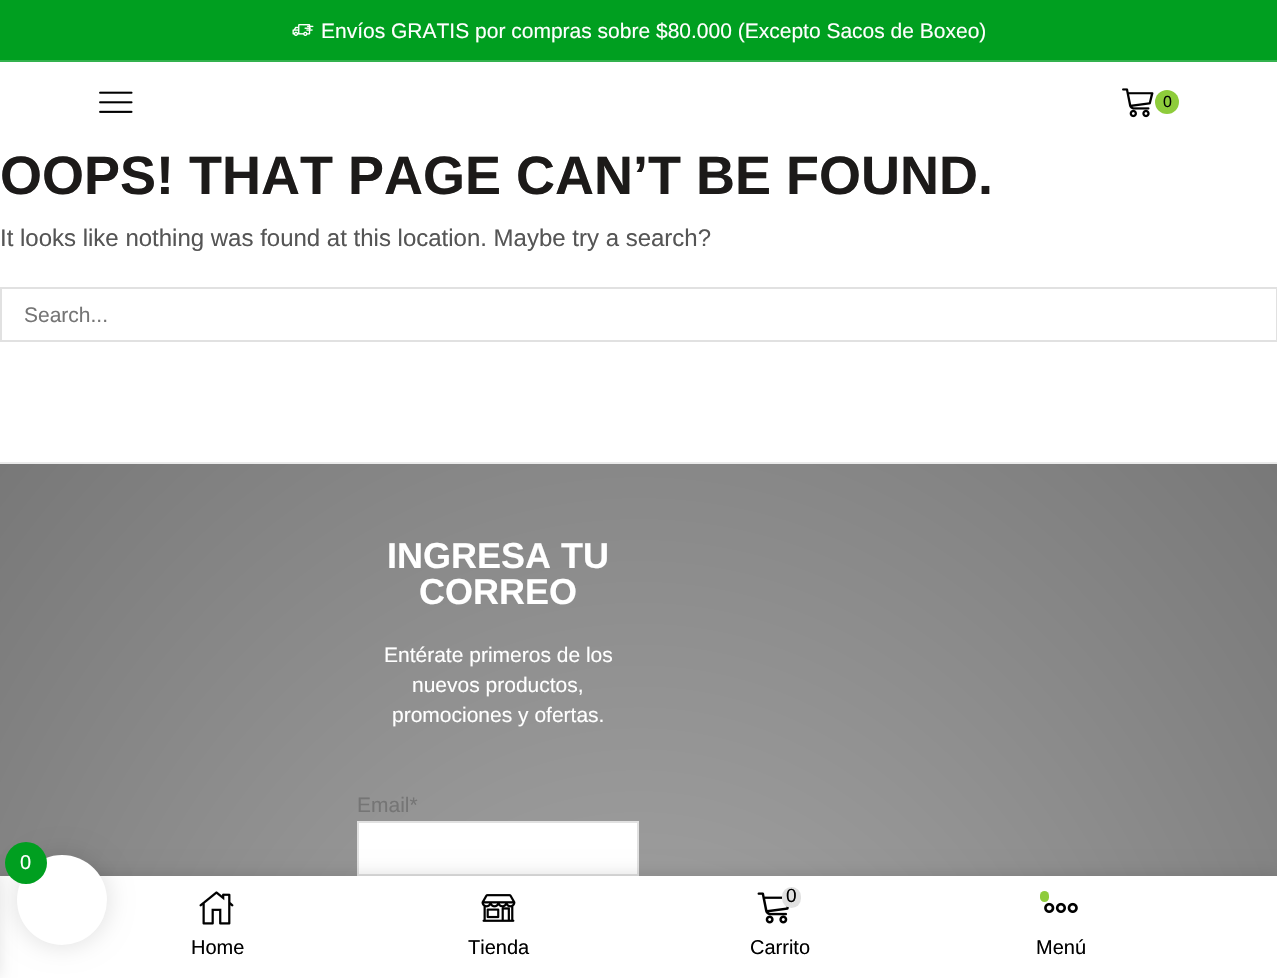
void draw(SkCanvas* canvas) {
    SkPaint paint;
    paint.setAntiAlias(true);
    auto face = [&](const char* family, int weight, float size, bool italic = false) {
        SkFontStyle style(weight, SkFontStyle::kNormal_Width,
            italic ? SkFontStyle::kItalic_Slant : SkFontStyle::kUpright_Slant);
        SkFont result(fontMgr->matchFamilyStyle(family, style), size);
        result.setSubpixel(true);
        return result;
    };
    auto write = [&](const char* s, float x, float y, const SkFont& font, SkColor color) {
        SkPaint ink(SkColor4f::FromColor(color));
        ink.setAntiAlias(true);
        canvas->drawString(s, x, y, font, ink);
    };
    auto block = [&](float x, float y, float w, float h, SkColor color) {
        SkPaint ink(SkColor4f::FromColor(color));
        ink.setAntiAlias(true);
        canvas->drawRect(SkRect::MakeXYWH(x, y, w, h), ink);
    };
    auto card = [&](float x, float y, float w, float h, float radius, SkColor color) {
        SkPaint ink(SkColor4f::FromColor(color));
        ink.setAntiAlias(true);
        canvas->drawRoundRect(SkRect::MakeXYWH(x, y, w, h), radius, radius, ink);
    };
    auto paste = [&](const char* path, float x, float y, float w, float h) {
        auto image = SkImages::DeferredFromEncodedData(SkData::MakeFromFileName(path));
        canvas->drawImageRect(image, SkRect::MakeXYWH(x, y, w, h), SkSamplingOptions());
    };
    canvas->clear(SK_ColorWHITE);
    block(0, 0, 1277, 60, SkColorSetRGB(0, 159, 32));
    block(0, 60, 1277, 2, SkColorSetRGB(51, 178, 77));
    paste("pic1.png", 292, 24, 22, 12);
    auto kFont1 = face("Liberation Sans", 400, 21);
    write("Envíos GRATIS por compras sobre $80.000 (Excepto Sacos de Boxeo)", 321, 38, kFont1, SK_ColorWHITE);
    paste("pic2.png", 99, 91, 34, 22);
    paste("pic3.png", 1122, 88, 32, 30);
    paint.setColor(SkColorSetRGB(142, 204, 59));
    canvas->drawCircle(1167, 102, 12, paint);
    auto kFont2 = face("Liberation Sans", 400, 16);
    write("0", 1163, 107, kFont2, SK_ColorBLACK);
    auto kFont3 = face("Liberation Sans", 700, 54);
    write("OOPS! THAT PAGE CAN’T BE FOUND.", 0, 194, kFont3, SkColorSetRGB(28, 26, 25));
    auto kFont4 = face("Liberation Sans", 400, 24);
    write("It looks like nothing was found at this location. Maybe try a search?", 0, 246, kFont4, SkColorSetRGB(85, 85, 85));
    paint.setStyle(SkPaint::kStroke_Style);
    paint.setStrokeWidth(2);
    paint.setColor(SkColorSetRGB(225, 225, 225));
    canvas->drawRect(SkRect::MakeXYWH(1, 288, 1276, 53), paint);
    write("Search...", 24, 322, kFont1, SkColorSetRGB(117, 117, 117));
    block(0, 462, 1277, 2, SkColorSetRGB(234, 234, 234));
    paint.setStyle(SkPaint::kFill_Style);
    {
        const SkColor colors[] = {SkColorSetRGB(174, 174, 174), SkColorSetRGB(120, 120, 120)};
        const float stops[] = {0, 1};
        SkMatrix m = SkMatrix::Translate(639, 1262).preScale(904, 1130);
        paint.setShader(SkGradientShader::MakeRadial({0, 0}, 1, colors, stops, 2, SkTileMode::kClamp, 0, &m));
        paint.setAlpha(255);
    }
    canvas->drawRect(SkRect::MakeXYWH(0, 464, 1277, 412), paint);
    auto kFont5 = face("Liberation Sans", 700, 36);
    write("INGRESA TU", 387, 568, kFont5, SK_ColorWHITE);
    write("CORREO", 419, 604, kFont5, SK_ColorWHITE);
    write("Entérate primeros de los", 384, 662, kFont1, SK_ColorWHITE);
    write("nuevos productos,", 412, 692, kFont1, SK_ColorWHITE);
    write("promociones y ofertas.", 392, 722, kFont1, SK_ColorWHITE);
    write("Email*", 357, 812, kFont1, SkColorSetRGB(117, 117, 117));
    paint.setShader(nullptr);
    paint.setColor(SK_ColorWHITE);
    canvas->drawRect(SkRect::MakeXYWH(358, 822, 280, 53), paint);
    paint.setStyle(SkPaint::kStroke_Style);
    paint.setColor(SkColorSetRGB(225, 225, 225));
    canvas->drawRect(SkRect::MakeXYWH(358, 822, 280, 53), paint);
    paint.setStyle(SkPaint::kFill_Style);
    paint.setColor(SkColorSetARGB(38, 0, 0, 0));
    paint.setMaskFilter(SkMaskFilter::MakeBlur(kNormal_SkBlurStyle, 9));
    canvas->drawRect(SkRect::MakeXYWH(3, 876, 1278, 102), paint);
    paint.setMaskFilter(nullptr);
    block(0, 876, 1277, 102, SK_ColorWHITE);
    paste("pic4.png", 199, 891, 35, 34);
    auto kFont6 = face("Liberation Sans", 400, 20);
    write("Home", 191, 954, kFont6, SK_ColorBLACK);
    paste("pic5.png", 481, 894, 35, 28);
    write("Tienda", 468, 954, kFont6, SK_ColorBLACK);
    paste("pic6.png", 757, 892, 32, 32);
    card(782, 887, 19, 21, 9.5f, SkColorSetRGB(225, 225, 225));
    auto kFont7 = face("Liberation Sans", 400, 19);
    write("0", 786, 902, kFont7, SK_ColorBLACK);
    write("Carrito", 750, 954, kFont6, SK_ColorBLACK);
    card(1040, 891, 9, 11, 4.5f, SkColorSetRGB(142, 204, 59));
    paste("pic7.png", 1044, 902, 34, 11);
    write("Menú", 1036, 954, kFont6, SK_ColorBLACK);
    paint.setColor(SkColorSetARGB(26, 0, 0, 0));
    paint.setMaskFilter(SkMaskFilter::MakeBlur(kNormal_SkBlurStyle, 7.5f));
    canvas->drawRect(SkRect::MakeXYWH(-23, 872, 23, 105), paint);
    paint.setMaskFilter(nullptr);
    paint.setMaskFilter(SkMaskFilter::MakeBlur(kNormal_SkBlurStyle, 11));
    canvas->drawRoundRect(SkRect::MakeXYWH(14, 852, 96, 96), 48, 48, paint);
    paint.setMaskFilter(nullptr);
    paint.setColor(SK_ColorWHITE);
    canvas->drawCircle(62, 900, 45, paint);
    paint.setColor(SkColorSetRGB(0, 159, 32));
    canvas->drawCircle(26, 863, 21, paint);
    write("0", 20, 869, kFont6, SK_ColorWHITE);
}
